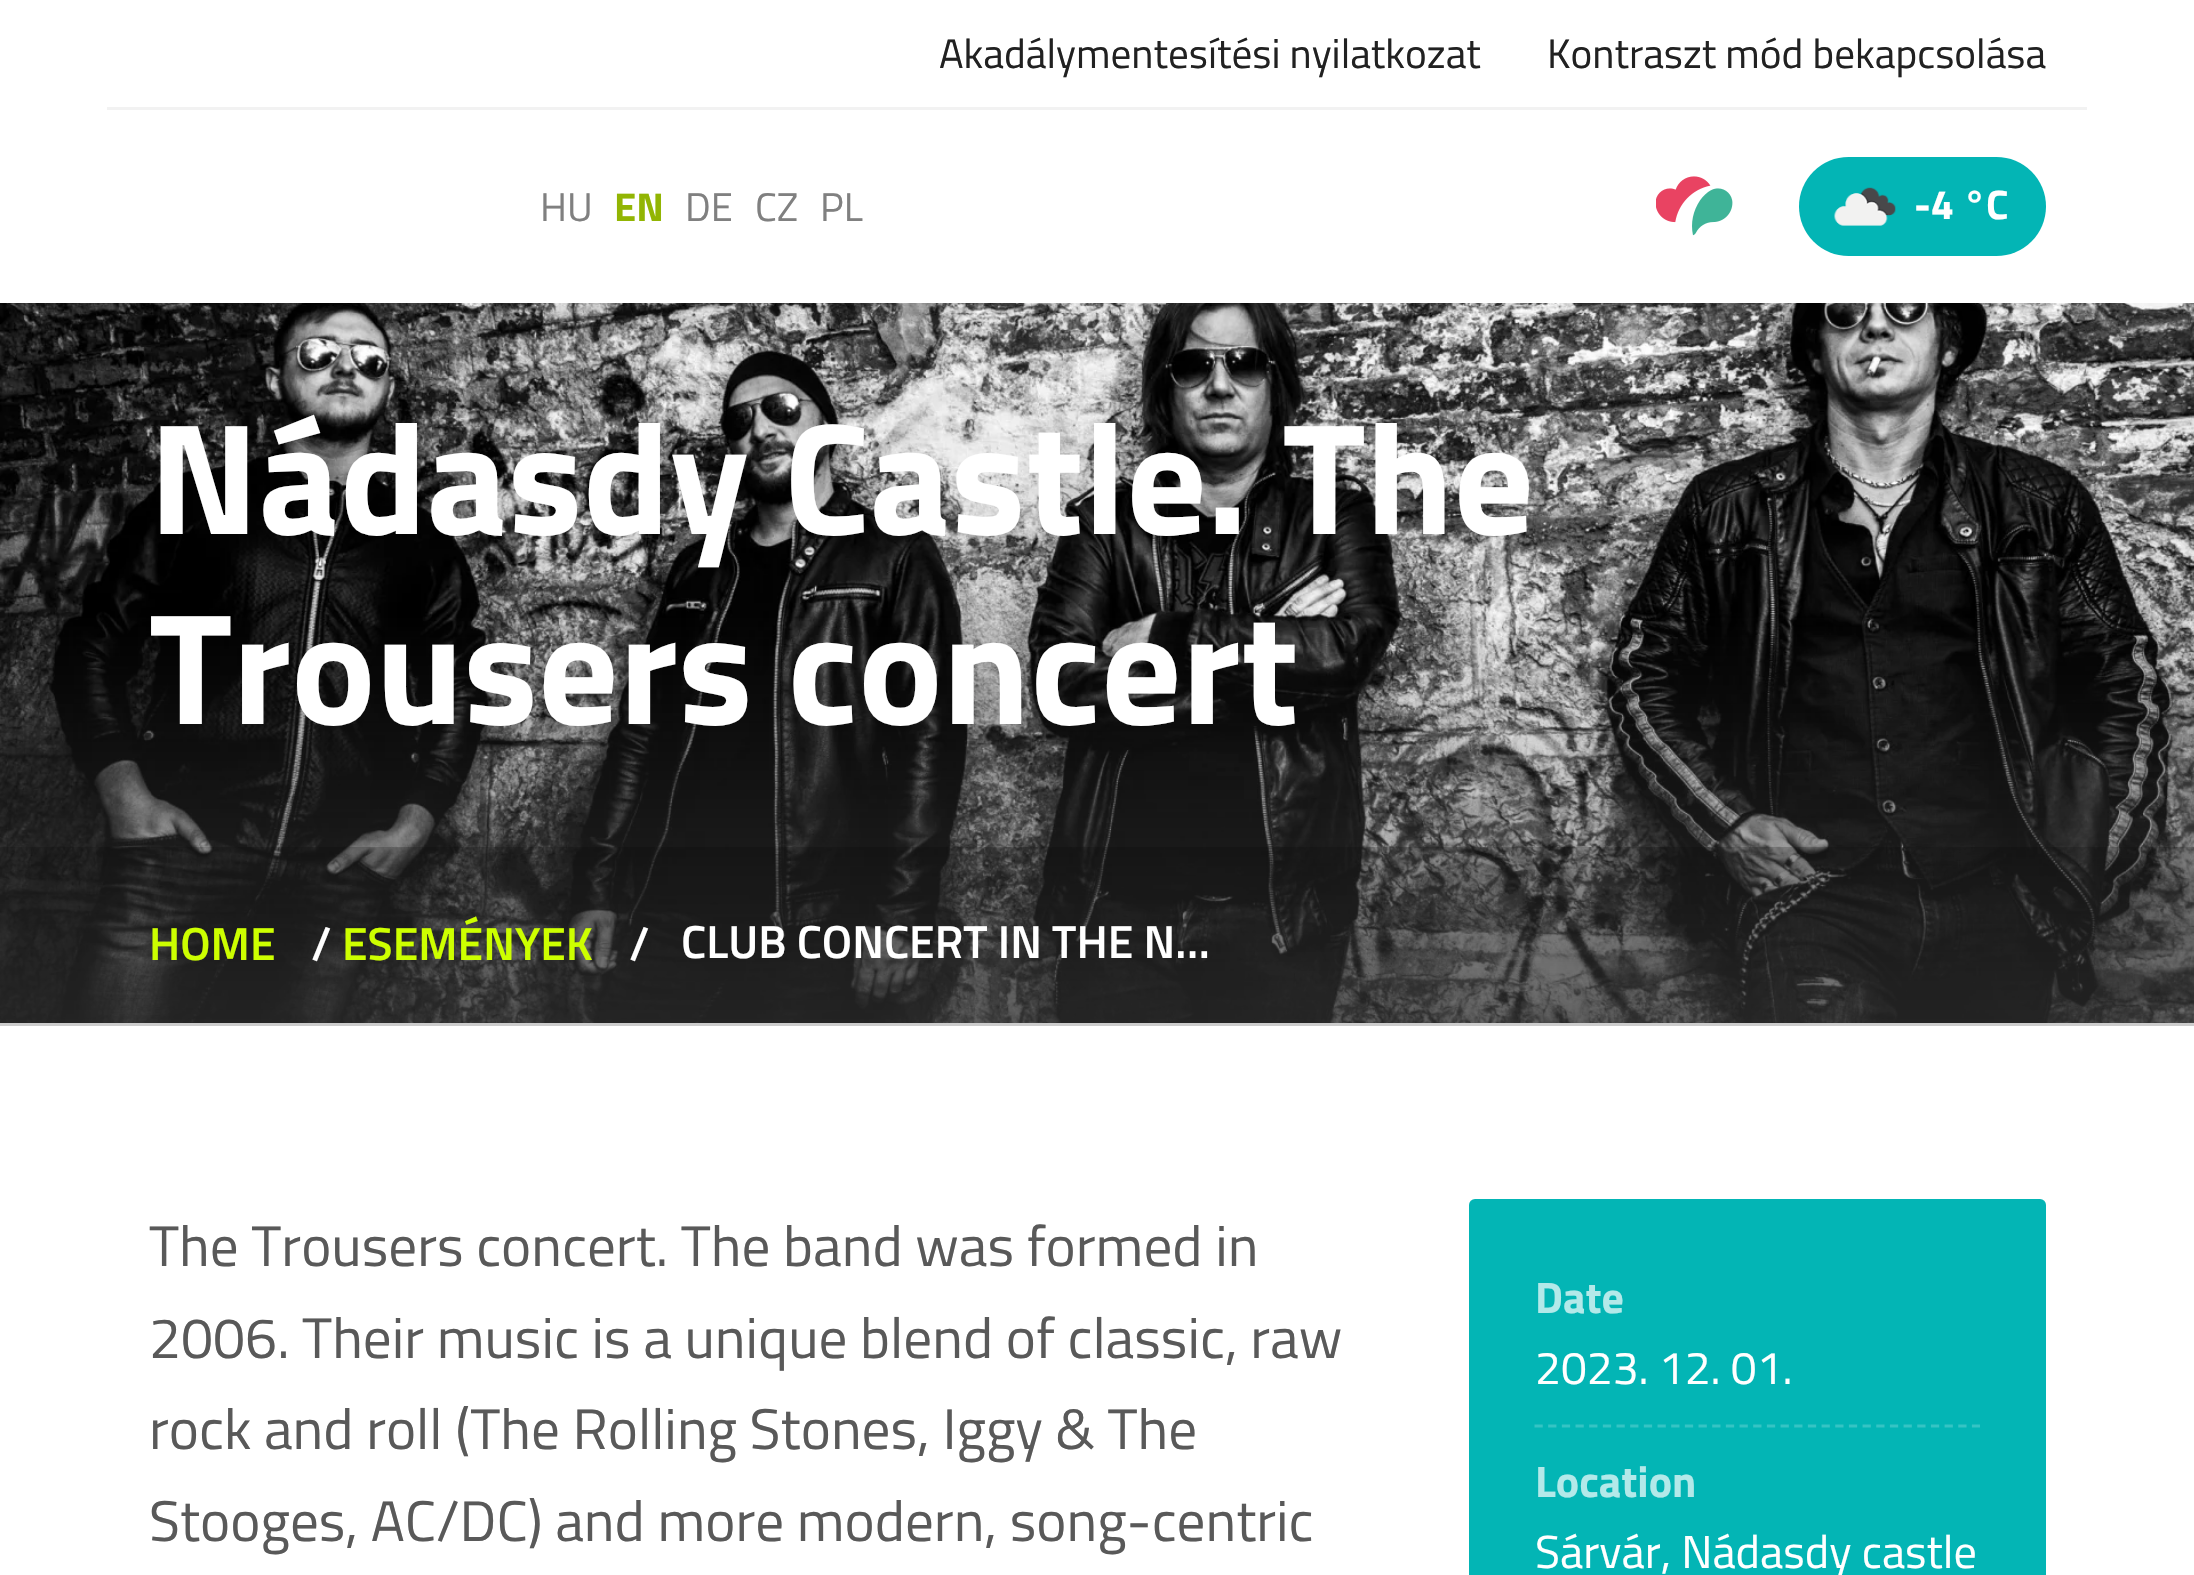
void draw(SkCanvas* canvas) {
    SkPaint paint;
    paint.setAntiAlias(true);
    auto face = [&](const char* family, int weight, float size, bool italic = false) {
        SkFontStyle style(weight, SkFontStyle::kNormal_Width,
            italic ? SkFontStyle::kItalic_Slant : SkFontStyle::kUpright_Slant);
        SkFont result(fontMgr->matchFamilyStyle(family, style), size);
        result.setSubpixel(true);
        return result;
    };
    auto write = [&](const char* s, float x, float y, const SkFont& font, SkColor color) {
        SkPaint ink(SkColor4f::FromColor(color));
        ink.setAntiAlias(true);
        canvas->drawString(s, x, y, font, ink);
    };
    auto block = [&](float x, float y, float w, float h, SkColor color) {
        SkPaint ink(SkColor4f::FromColor(color));
        ink.setAntiAlias(true);
        canvas->drawRect(SkRect::MakeXYWH(x, y, w, h), ink);
    };
    auto card = [&](float x, float y, float w, float h, float radius, SkColor color) {
        SkPaint ink(SkColor4f::FromColor(color));
        ink.setAntiAlias(true);
        canvas->drawRoundRect(SkRect::MakeXYWH(x, y, w, h), radius, radius, ink);
    };
    auto paste = [&](const char* path, float x, float y, float w, float h) {
        auto image = SkImages::DeferredFromEncodedData(SkData::MakeFromFileName(path));
        canvas->drawImageRect(image, SkRect::MakeXYWH(x, y, w, h), SkSamplingOptions());
    };
    canvas->clear(SK_ColorWHITE);
    block(107, 107, 1980, 3, SkColorSetRGB(242, 242, 242));
    auto kFont1 = face("Titillium Web", 400, 41.25f);
    write("Akadálymentesítési nyilatkozat", 939, 68, kFont1, SkColorSetRGB(33, 33, 33));
    write("Kontraszt mód bekapcsolása", 1547, 68, kFont1, SkColorSetRGB(33, 33, 33));
    auto kFont2 = face("Titillium Web", 400, 40);
    write("HU", 540, 221, kFont2, SkColorSetRGB(128, 128, 128));
    auto kFont3 = face("Titillium Web", 700, 40);
    write("EN", 614, 221, kFont3, SkColorSetRGB(146, 181, 3));
    write("DE", 685, 221, kFont2, SkColorSetRGB(128, 128, 128));
    write("CZ", 755, 221, kFont2, SkColorSetRGB(128, 128, 128));
    write("PL", 820, 221, kFont2, SkColorSetRGB(128, 128, 128));
    paste("pic1.png", 1656, 176, 77, 60);
    card(1799, 157, 247, 99, 49.5f, SkColorSetRGB(3, 181, 181));
    paste("pic2.png", 1834, 187, 62, 39);
    auto kFont4 = face("Titillium Web", 700, 41.25f);
    write("-4 °C", 1914, 219, kFont4, SK_ColorWHITE);
    paste("pic3.png", 0, 303, 2194, 720);
    auto kFont5 = face("Titillium Web", 700, 158.5f);
    write("Nádasdy Castle. The", 149, 534, kFont5, SK_ColorWHITE);
    write("Trousers concert", 149, 724, kFont5, SK_ColorWHITE);
    block(0, 847, 2194, 179, SkColorSetARGB(51, 0, 0, 0));
    auto kFont6 = face("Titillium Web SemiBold", 600, 46.25f);
    write("HOME", 149, 960, kFont6, SkColorSetRGB(205, 255, 0));
    write("/", 311, 960, kFont6, SK_ColorWHITE);
    write("ESEMÉNYEK", 342, 960, kFont6, SkColorSetRGB(205, 255, 0));
    write("/", 629, 960, kFont6, SK_ColorWHITE);
    write("CLUB CONCERT IN THE N…", 681, 958, kFont6, SK_ColorWHITE);
    auto kFont7 = face("Titillium Web", 400, 57.2f);
    write("The Trousers concert. The band was formed in", 149, 1266, kFont7, SkColorSetRGB(89, 89, 89));
    write("2006. Their music is a unique blend of classic, raw", 149, 1358, kFont7, SkColorSetRGB(89, 89, 89));
    write("rock and roll (The Rolling Stones, Iggy & The", 149, 1449, kFont7, SkColorSetRGB(89, 89, 89));
    write("Stooges, AC/DC) and more modern, song-centric", 149, 1541, kFont7, SkColorSetRGB(89, 89, 89));
    card(1469, 1199, 577, 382, 6, SkColorSetRGB(3, 181, 181));
    auto kFont8 = face("Titillium Web", 700, 44);
    write("Date", 1535, 1313, kFont8, SkColorSetRGB(179, 233, 233));
    auto kFont9 = face("Titillium Web", 400, 46.25f);
    write("2023. 12. 01.", 1535, 1384, kFont9, SK_ColorWHITE);
    paint.setStyle(SkPaint::kStroke_Style);
    paint.setStrokeWidth(2.8f);
    paint.setColor(SkColorSetRGB(53, 196, 196));
    paint.setPathEffect(SkDashPathEffect::Make({{8.25f, 5.42f}}, 0));
    canvas->drawPath(SkPathBuilder().moveTo(1534.5f, 1426).lineTo(1980, 1426).detach(), paint);
    paint.setPathEffect(nullptr);
    write("Location", 1535, 1497, kFont8, SkColorSetRGB(179, 233, 233));
    write("Sárvár, Nádasdy castle", 1535, 1568, kFont9, SK_ColorWHITE);
}
